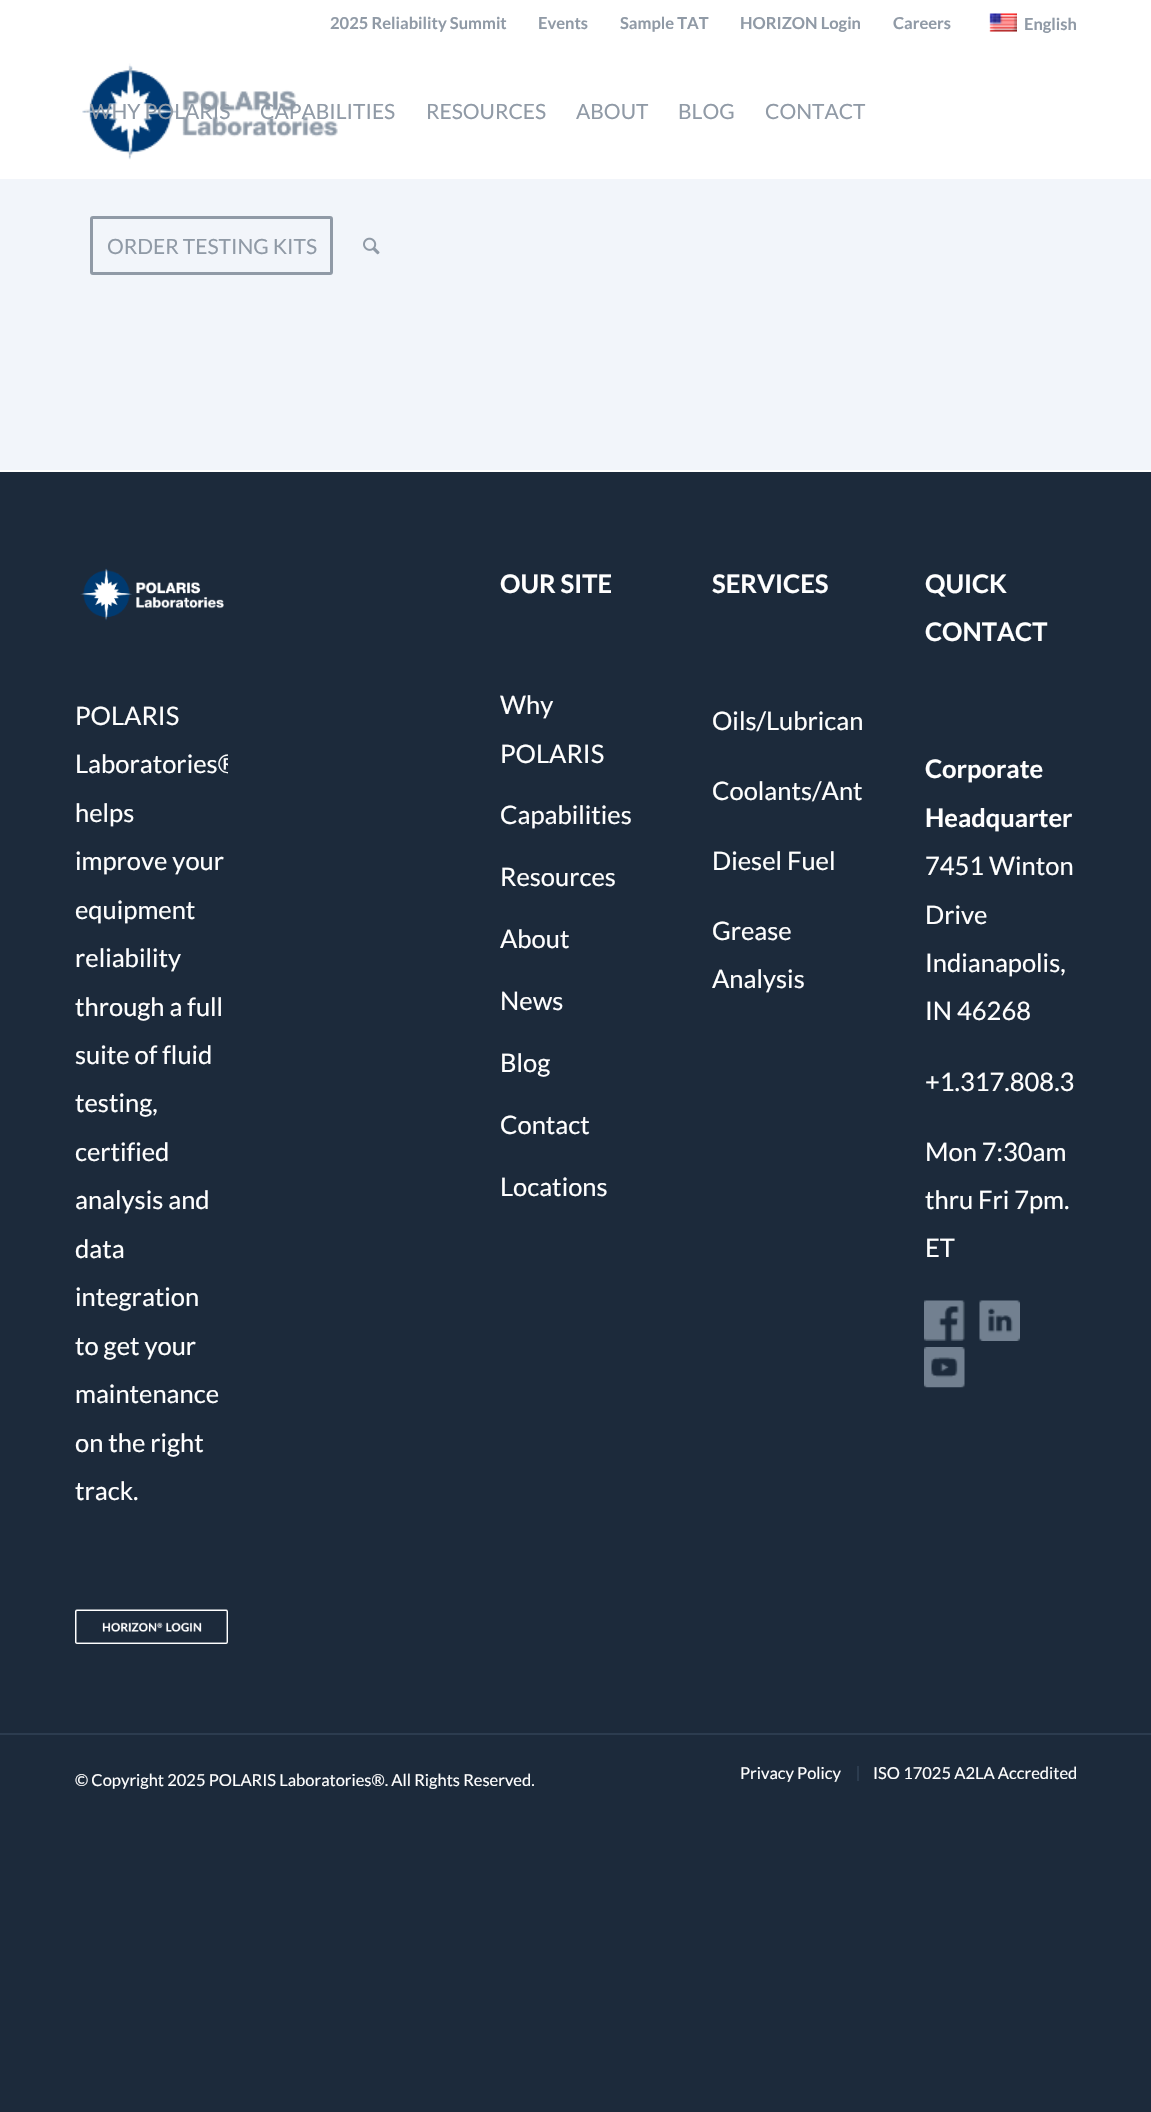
void draw(SkCanvas* canvas) {
    SkPaint paint;
    paint.setAntiAlias(true);
    auto face = [&](const char* family, int weight, float size, bool italic = false) {
        SkFontStyle style(weight, SkFontStyle::kNormal_Width,
            italic ? SkFontStyle::kItalic_Slant : SkFontStyle::kUpright_Slant);
        SkFont result(fontMgr->matchFamilyStyle(family, style), size);
        result.setSubpixel(true);
        return result;
    };
    auto write = [&](const char* s, float x, float y, const SkFont& font, SkColor color) {
        SkPaint ink(SkColor4f::FromColor(color));
        ink.setAntiAlias(true);
        canvas->drawString(s, x, y, font, ink);
    };
    auto block = [&](float x, float y, float w, float h, SkColor color) {
        SkPaint ink(SkColor4f::FromColor(color));
        ink.setAntiAlias(true);
        canvas->drawRect(SkRect::MakeXYWH(x, y, w, h), ink);
    };
    auto paste = [&](const char* path, float x, float y, float w, float h) {
        auto image = SkImages::DeferredFromEncodedData(SkData::MakeFromFileName(path));
        canvas->drawImageRect(image, SkRect::MakeXYWH(x, y, w, h), SkSamplingOptions());
    };
    canvas->clear(SkColorSetRGB(28, 42, 59));
    block(0, 0, 1151, 179, SK_ColorWHITE);
    auto kFont1 = face("Lato", 700, 16.5f);
    write("2025 Reliability Summit", 330, 29, kFont1, SkColorSetRGB(144, 154, 166));
    write("Events", 538, 29, kFont1, SkColorSetRGB(144, 154, 166));
    write("Sample TAT", 620, 29, kFont1, SkColorSetRGB(144, 154, 166));
    write("HORIZON Login", 740, 29, kFont1, SkColorSetRGB(144, 154, 166));
    write("Careers", 893, 29, kFont1, SkColorSetRGB(144, 154, 166));
    paste("pic1.png", 989, 13, 28, 19);
    write("English", 1024, 30, kFont1, SkColorSetRGB(144, 154, 166));
    paste("pic2.png", 82, 63, 256, 97);
    auto kFont2 = face("Lato", 400, 21);
    write("WHY POLARIS", 90, 119, kFont2, SkColorSetRGB(144, 154, 166));
    write("CAPABILITIES", 260, 119, kFont2, SkColorSetRGB(144, 154, 166));
    write("RESOURCES", 426, 119, kFont2, SkColorSetRGB(144, 154, 166));
    write("ABOUT", 576, 119, kFont2, SkColorSetRGB(144, 154, 166));
    write("BLOG", 678, 119, kFont2, SkColorSetRGB(144, 154, 166));
    write("CONTACT", 765, 119, kFont2, SkColorSetRGB(144, 154, 166));
    block(0, 179, 1151, 291, SkColorSetRGB(242, 245, 250));
    paint.setStyle(SkPaint::kStroke_Style);
    paint.setStrokeWidth(3);
    paint.setColor(SkColorSetRGB(144, 154, 166));
    canvas->drawRoundRect(SkRect::MakeXYWH(91.5f, 217.5f, 240, 56), 1.5f, 1.5f, paint);
    write("ORDER TESTING KITS", 107, 254, kFont2, SkColorSetRGB(144, 154, 166));
    paste("pic3.png", 363, 237, 17, 18);
    block(0, 470, 1151, 2, SK_ColorWHITE);
    paste("pic4.png", 80, 568, 144, 53);
    auto kFont3 = face("Lato", 400, 25.5f);
    write("POLARIS", 75, 725, kFont3, SK_ColorWHITE);
    canvas->save();
    canvas->clipRect(SkRect::MakeXYWH(75, 671, 153, 867));
    write("Laboratories®", 75, 773, kFont3, SK_ColorWHITE);
    canvas->restore();
    write("helps", 75, 822, kFont3, SK_ColorWHITE);
    write("improve your", 75, 870, kFont3, SK_ColorWHITE);
    write("equipment", 75, 919, kFont3, SK_ColorWHITE);
    write("reliability", 75, 967, kFont3, SK_ColorWHITE);
    write("through a full", 75, 1016, kFont3, SK_ColorWHITE);
    write("suite of fluid", 75, 1064, kFont3, SK_ColorWHITE);
    write("testing,", 75, 1112, kFont3, SK_ColorWHITE);
    write("certified", 75, 1161, kFont3, SK_ColorWHITE);
    write("analysis and", 75, 1209, kFont3, SK_ColorWHITE);
    write("data", 75, 1258, kFont3, SK_ColorWHITE);
    write("integration", 75, 1306, kFont3, SK_ColorWHITE);
    write("to get your", 75, 1355, kFont3, SK_ColorWHITE);
    write("maintenance", 75, 1403, kFont3, SK_ColorWHITE);
    write("on the right", 75, 1452, kFont3, SK_ColorWHITE);
    write("track.", 75, 1500, kFont3, SK_ColorWHITE);
    paste("pic5.png", 75, 1609, 153, 35);
    auto kFont4 = face("Lato", 700, 25.5f);
    write("OUR SITE", 500, 593, kFont4, SK_ColorWHITE);
    write("Why", 500, 714, kFont3, SK_ColorWHITE);
    write("POLARIS", 500, 763, kFont3, SK_ColorWHITE);
    write("Capabilities", 500, 824, kFont3, SK_ColorWHITE);
    write("Resources", 500, 886, kFont3, SK_ColorWHITE);
    write("About", 500, 948, kFont3, SK_ColorWHITE);
    write("News", 500, 1010, kFont3, SK_ColorWHITE);
    write("Blog", 500, 1072, kFont3, SK_ColorWHITE);
    write("Contact", 500, 1134, kFont3, SK_ColorWHITE);
    write("Locations", 500, 1196, kFont3, SK_ColorWHITE);
    write("SERVICES", 712, 593, kFont4, SK_ColorWHITE);
    write("Oils/Lubrican", 712, 730, kFont3, SK_ColorWHITE);
    write("Coolants/Ant", 712, 800, kFont3, SK_ColorWHITE);
    write("Diesel Fuel", 712, 870, kFont3, SK_ColorWHITE);
    write("Grease", 712, 940, kFont3, SK_ColorWHITE);
    write("Analysis", 712, 988, kFont3, SK_ColorWHITE);
    write("QUICK", 925, 593, kFont4, SK_ColorWHITE);
    write("CONTACT", 925, 641, kFont4, SK_ColorWHITE);
    write("Corporate", 925, 778, kFont4, SK_ColorWHITE);
    write("Headquarter", 925, 827, kFont4, SK_ColorWHITE);
    write("7451 Winton", 925, 875, kFont3, SK_ColorWHITE);
    write("Drive", 925, 924, kFont3, SK_ColorWHITE);
    write("Indianapolis,", 925, 972, kFont3, SK_ColorWHITE);
    write("IN 46268", 925, 1020, kFont3, SK_ColorWHITE);
    write("+1.317.808.3", 925, 1091, kFont3, SK_ColorWHITE);
    write("Mon 7:30am", 925, 1161, kFont3, SK_ColorWHITE);
    write("thru Fri 7pm.", 925, 1209, kFont3, SK_ColorWHITE);
    write("ET", 925, 1257, kFont3, SK_ColorWHITE);
    paste("pic6.png", 924, 1300, 41, 41);
    paste("pic7.png", 979, 1300, 41, 41);
    paste("pic8.png", 924, 1347, 41, 41);
    block(0, 1733, 1151, 2, SkColorSetRGB(44, 60, 79));
    auto kFont5 = face("Lato", 400, 16.5f);
    write("© Copyright 2025 POLARIS Laboratories®. All Rights Reserved.", 75, 1786, kFont5, SK_ColorWHITE);
    write("Privacy Policy", 740, 1779, kFont5, SK_ColorWHITE);
    block(857, 1766, 2, 15, SkColorSetRGB(44, 60, 79));
    write("ISO 17025 A2LA Accredited", 873, 1779, kFont5, SK_ColorWHITE);
}
